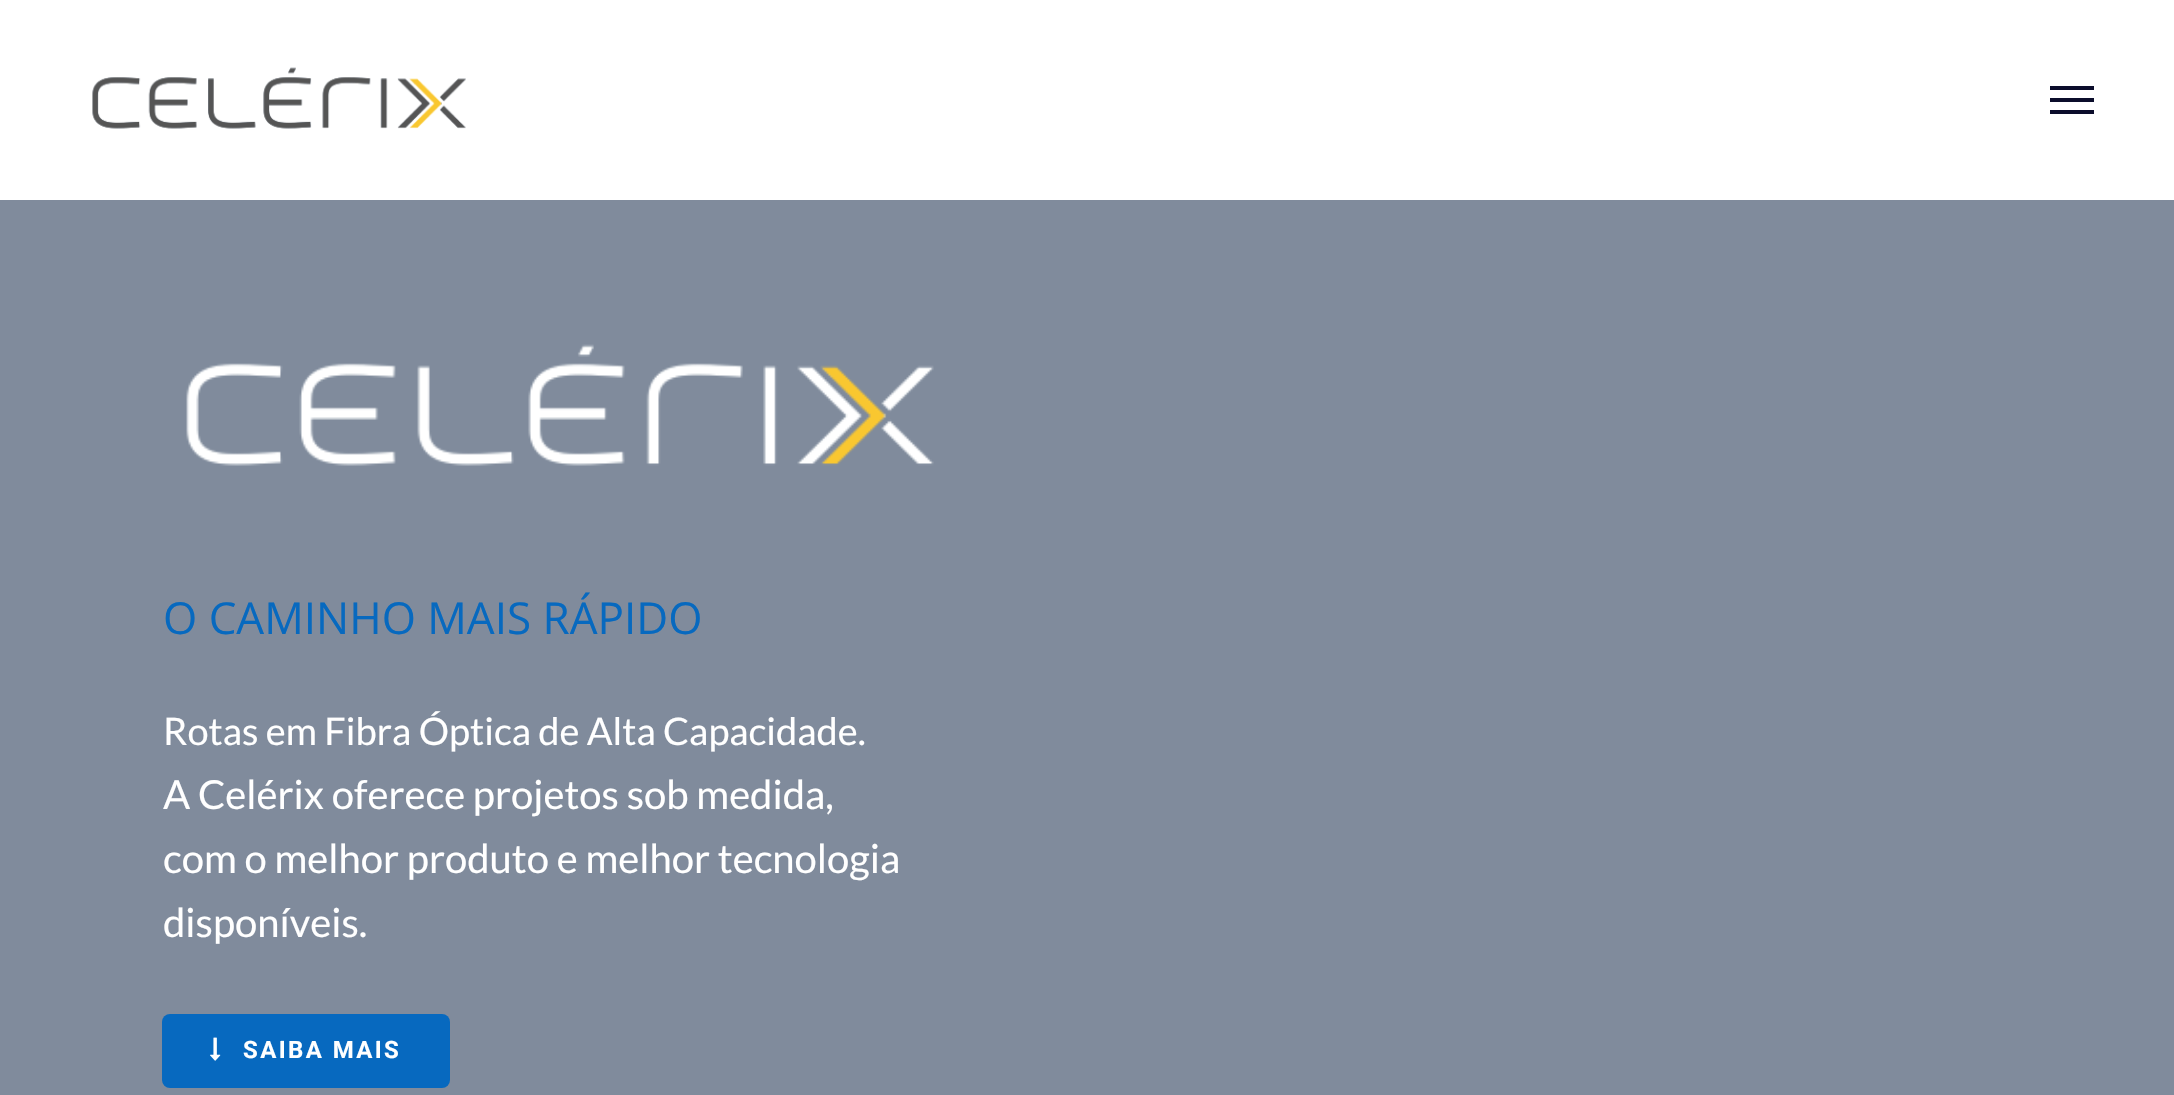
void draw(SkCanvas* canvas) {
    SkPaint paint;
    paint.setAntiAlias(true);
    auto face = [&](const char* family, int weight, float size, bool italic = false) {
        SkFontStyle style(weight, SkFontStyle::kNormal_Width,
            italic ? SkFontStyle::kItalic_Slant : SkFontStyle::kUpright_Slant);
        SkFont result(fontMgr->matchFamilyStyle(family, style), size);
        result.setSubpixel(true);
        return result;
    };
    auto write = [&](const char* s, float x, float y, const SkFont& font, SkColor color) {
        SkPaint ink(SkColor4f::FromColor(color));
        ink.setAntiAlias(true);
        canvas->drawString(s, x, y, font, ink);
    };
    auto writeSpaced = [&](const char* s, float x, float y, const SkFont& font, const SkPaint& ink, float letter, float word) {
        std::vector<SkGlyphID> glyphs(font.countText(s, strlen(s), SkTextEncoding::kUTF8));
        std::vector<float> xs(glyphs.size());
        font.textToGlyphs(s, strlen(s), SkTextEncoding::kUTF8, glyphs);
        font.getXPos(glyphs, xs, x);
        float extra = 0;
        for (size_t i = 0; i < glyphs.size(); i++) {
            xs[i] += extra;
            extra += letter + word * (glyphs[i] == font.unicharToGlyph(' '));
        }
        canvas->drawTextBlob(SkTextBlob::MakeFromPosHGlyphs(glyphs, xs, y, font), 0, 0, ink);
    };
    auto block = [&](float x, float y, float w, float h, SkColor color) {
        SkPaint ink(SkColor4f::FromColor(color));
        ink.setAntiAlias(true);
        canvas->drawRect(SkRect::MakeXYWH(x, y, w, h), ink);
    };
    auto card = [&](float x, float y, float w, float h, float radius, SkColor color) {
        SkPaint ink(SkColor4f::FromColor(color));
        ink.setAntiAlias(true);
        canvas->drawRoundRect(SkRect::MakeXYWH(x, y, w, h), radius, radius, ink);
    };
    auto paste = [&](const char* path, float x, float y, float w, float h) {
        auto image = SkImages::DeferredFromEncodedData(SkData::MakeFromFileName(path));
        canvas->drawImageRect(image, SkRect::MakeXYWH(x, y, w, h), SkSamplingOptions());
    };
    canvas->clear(SkColorSetRGB(128, 139, 156));
    block(0, 0, 2174, 200, SK_ColorWHITE);
    paste("pic1.png", 92, 67, 374, 62);
    block(2050, 98, 44, 4, SkColorSetRGB(11, 13, 43));
    block(2050, 86, 44, 4, SkColorSetRGB(11, 13, 43));
    block(2050, 110, 44, 4, SkColorSetRGB(11, 13, 43));
    paste("pic2.png", 186, 344, 748, 122);
    auto kFont1 = face("Open Sans", 400, 44);
    write("O CAMINHO MAIS RÁPIDO", 163, 634, kFont1, SkColorSetRGB(7, 105, 191));
    auto kFont2 = face("Lato", 400, 38);
    write("Rotas em Fibra Óptica de Alta Capacidade.", 163, 745, kFont2, SK_ColorWHITE);
    auto kFont3 = face("Lato", 400, 40);
    write("A Celérix oferece projetos sob medida,", 163, 809, kFont3, SK_ColorWHITE);
    write("com o melhor produto e melhor tecnologia", 163, 873, kFont3, SK_ColorWHITE);
    write("disponíveis.", 163, 937, kFont3, SK_ColorWHITE);
    card(162, 1014, 288, 74, 8, SkColorSetRGB(7, 105, 191));
    paste("pic3.png", 210, 1037, 11, 24);
    auto kFont4 = face("Roboto", 700, 24);
    paint.setColor(SK_ColorWHITE);
    writeSpaced("SAIBA MAIS", 243, 1058, kFont4, paint, 2.4f, 0);
}
